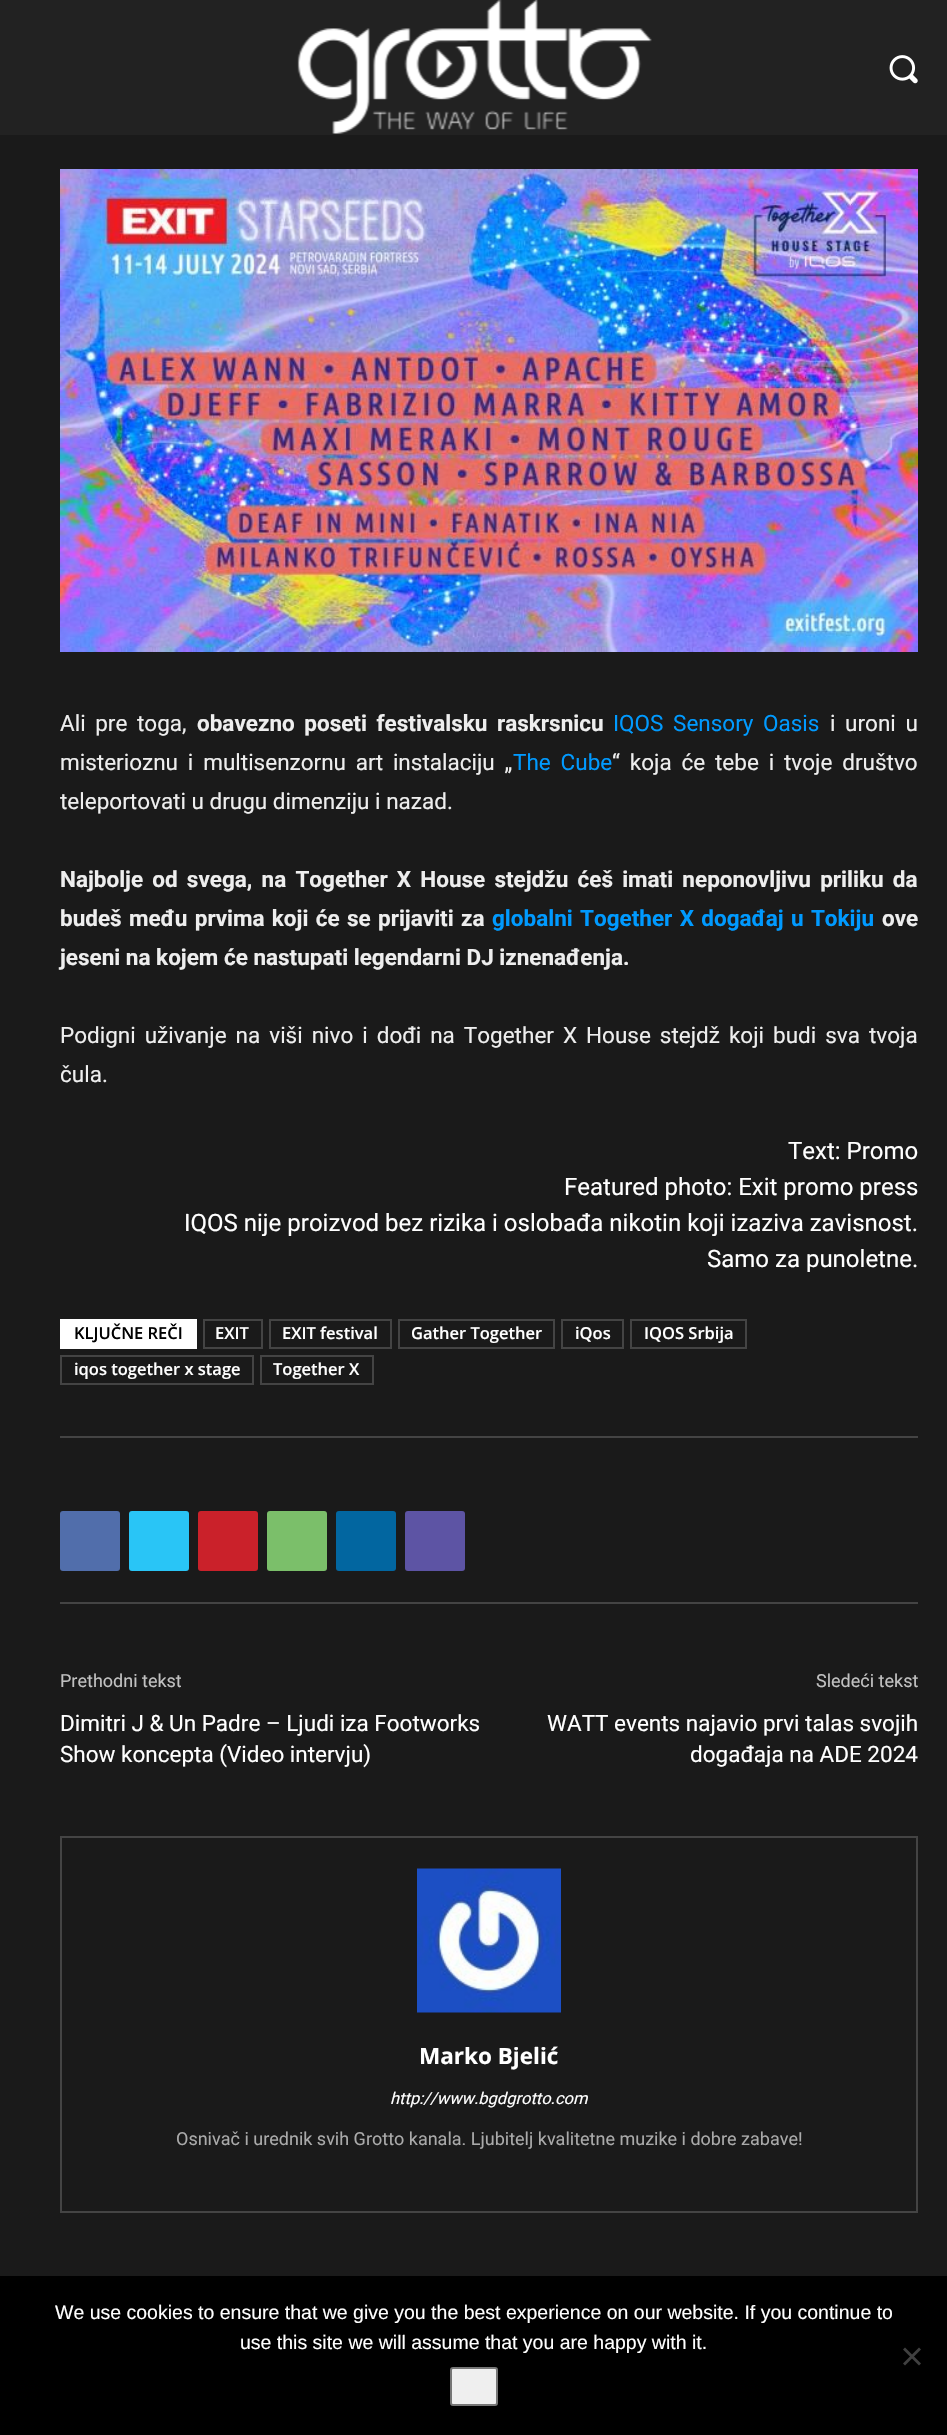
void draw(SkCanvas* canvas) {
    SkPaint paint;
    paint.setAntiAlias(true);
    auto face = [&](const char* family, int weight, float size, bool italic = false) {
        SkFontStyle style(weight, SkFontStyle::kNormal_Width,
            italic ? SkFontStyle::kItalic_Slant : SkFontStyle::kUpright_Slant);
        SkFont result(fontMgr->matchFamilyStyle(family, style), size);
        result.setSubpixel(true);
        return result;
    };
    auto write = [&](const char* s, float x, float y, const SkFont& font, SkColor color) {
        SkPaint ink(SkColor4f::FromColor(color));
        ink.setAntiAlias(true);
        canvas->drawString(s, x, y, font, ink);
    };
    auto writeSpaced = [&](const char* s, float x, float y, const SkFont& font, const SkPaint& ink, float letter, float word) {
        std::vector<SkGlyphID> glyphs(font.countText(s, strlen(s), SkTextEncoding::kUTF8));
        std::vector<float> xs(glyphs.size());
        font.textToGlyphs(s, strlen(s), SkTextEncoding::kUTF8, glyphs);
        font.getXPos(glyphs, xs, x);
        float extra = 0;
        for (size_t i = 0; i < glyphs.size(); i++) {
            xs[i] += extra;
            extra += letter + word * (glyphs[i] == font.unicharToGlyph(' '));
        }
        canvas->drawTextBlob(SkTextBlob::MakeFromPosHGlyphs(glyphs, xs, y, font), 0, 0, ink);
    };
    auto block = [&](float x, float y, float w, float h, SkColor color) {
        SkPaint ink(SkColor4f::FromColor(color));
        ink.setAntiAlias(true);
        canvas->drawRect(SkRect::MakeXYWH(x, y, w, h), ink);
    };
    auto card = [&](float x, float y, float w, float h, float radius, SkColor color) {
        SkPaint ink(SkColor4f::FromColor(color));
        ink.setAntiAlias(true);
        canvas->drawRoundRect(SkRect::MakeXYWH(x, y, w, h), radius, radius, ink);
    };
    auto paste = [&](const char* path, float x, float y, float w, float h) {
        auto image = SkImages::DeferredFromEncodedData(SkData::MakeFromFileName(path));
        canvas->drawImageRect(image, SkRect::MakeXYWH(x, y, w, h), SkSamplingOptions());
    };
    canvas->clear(SkColorSetRGB(26, 26, 26));
    block(0, 0, 947, 135, SkColorSetRGB(34, 34, 34));
    paste("pic1.png", 297, 0, 355, 134);
    paste("pic2.png", 889, 55, 29, 29);
    paste("pic3.png", 60, 169, 858, 483);
    auto kFont1 = face("Roboto", 400, 22.5f);
    paint.setColor(SkColorSetRGB(238, 238, 238));
    writeSpaced("Ali pre toga,", 60, 731, kFont1, paint, 0, 4);
    auto kFont2 = face("Roboto", 700, 22.5f);
    writeSpaced("obavezno poseti festivalsku raskrsnicu", 197, 731, kFont2, paint, 0, 4);
    paint.setColor(SkColorSetRGB(0, 154, 255));
    writeSpaced("IQOS Sensory Oasis", 613, 731, kFont1, paint, 0, 4);
    paint.setColor(SkColorSetRGB(238, 238, 238));
    writeSpaced("i uroni u", 830, 731, kFont1, paint, 0, 4);
    writeSpaced("misterioznu i multisenzornu art instalaciju „", 60, 770, kFont1, paint, 0, 4.25f);
    paint.setColor(SkColorSetRGB(0, 154, 255));
    writeSpaced("The Cube", 513, 770, kFont1, paint, 0, 4.25f);
    paint.setColor(SkColorSetRGB(238, 238, 238));
    writeSpaced("“ koja će tebe i tvoje društvo", 612, 770, kFont1, paint, 0, 4.25f);
    write("teleportovati u drugu dimenziju i nazad.", 60, 809, kFont1, SkColorSetRGB(238, 238, 238));
    writeSpaced("Najbolje od svega, na Together X House stejdžu ćeš imati neponovljivu priliku da", 60, 887, kFont2, paint, 0, 3.6f);
    writeSpaced("budeš među prvima koji će se prijaviti za", 60, 926, kFont2, paint, 0, 1.75f);
    paint.setColor(SkColorSetRGB(0, 154, 255));
    writeSpaced("globalni Together X događaj u Tokiju", 492, 926, kFont2, paint, 0, 1.75f);
    write("ove", 882, 926, kFont2, SkColorSetRGB(238, 238, 238));
    write("jeseni na kojem će nastupati legendarni DJ iznenađenja.", 60, 965, kFont2, SkColorSetRGB(238, 238, 238));
    paint.setColor(SkColorSetRGB(238, 238, 238));
    writeSpaced("Podigni uživanje na viši nivo i dođi na Together X House stejdž koji budi sva tvoja", 60, 1043, kFont1, paint, 0, 3.4f);
    write("čula.", 60, 1082, kFont1, SkColorSetRGB(238, 238, 238));
    auto kFont3 = face("Roboto", 400, 24);
    write("Text: Promo", 788, 1159, kFont3, SK_ColorWHITE);
    write("Featured photo: Exit promo press", 564, 1195, kFont3, SK_ColorWHITE);
    write("IQOS nije proizvod bez rizika i oslobađa nikotin koji izaziva zavisnost.", 184, 1231, kFont3, SK_ColorWHITE);
    write("Samo za punoletne.", 707, 1267, kFont3, SK_ColorWHITE);
    block(60, 1319, 137, 30, SK_ColorWHITE);
    auto kFont4 = face("Open Sans", 600, 16.5f);
    write("KLJUČNE REČI", 74, 1339, kFont4, SK_ColorBLACK);
    paint.setStyle(SkPaint::kStroke_Style);
    paint.setStrokeWidth(2);
    paint.setColor(SkColorSetRGB(68, 68, 68));
    canvas->drawRect(SkRect::MakeXYWH(204, 1320, 58, 28), paint);
    write("EXIT", 215, 1339, kFont4, SK_ColorWHITE);
    canvas->drawRect(SkRect::MakeXYWH(270, 1320, 121, 28), paint);
    write("EXIT festival", 282, 1339, kFont4, SK_ColorWHITE);
    canvas->drawRect(SkRect::MakeXYWH(399, 1320, 155, 28), paint);
    write("Gather Together", 411, 1339, kFont4, SK_ColorWHITE);
    canvas->drawRect(SkRect::MakeXYWH(562, 1320, 61, 28), paint);
    write("iQos", 575, 1339, kFont4, SK_ColorWHITE);
    canvas->drawRect(SkRect::MakeXYWH(631, 1320, 115, 28), paint);
    write("IQOS Srbija", 644, 1339, kFont4, SK_ColorWHITE);
    canvas->drawRect(SkRect::MakeXYWH(61, 1356, 192, 28), paint);
    write("iqos together x stage", 74, 1375, kFont4, SK_ColorWHITE);
    canvas->drawRect(SkRect::MakeXYWH(261, 1356, 112, 28), paint);
    write("Together X", 273, 1375, kFont4, SK_ColorWHITE);
    block(60, 1436, 858, 2, SkColorSetRGB(68, 68, 68));
    block(60, 1602, 858, 2, SkColorSetRGB(68, 68, 68));
    card(60, 1511, 60, 60, 3, SkColorSetRGB(81, 110, 171));
    card(129, 1511, 60, 60, 3, SkColorSetRGB(41, 197, 246));
    card(198, 1511, 60, 60, 3, SkColorSetRGB(202, 33, 42));
    card(267, 1511, 60, 60, 3, SkColorSetRGB(123, 191, 106));
    card(336, 1511, 60, 60, 3, SkColorSetRGB(2, 102, 160));
    card(405, 1511, 60, 60, 3, SkColorSetRGB(93, 84, 164));
    auto kFont5 = face("Roboto", 400, 18);
    write("Prethodni tekst", 60, 1687, kFont5, SkColorSetRGB(193, 193, 193));
    write("Dimitri J & Un Padre – Ljudi iza Footworks", 60, 1731, kFont1, SK_ColorWHITE);
    write("Show koncepta (Video intervju)", 60, 1762, kFont1, SK_ColorWHITE);
    write("Sledeći tekst", 816, 1687, kFont5, SkColorSetRGB(193, 193, 193));
    write("WATT events najavio prvi talas svojih", 547, 1731, kFont1, SK_ColorWHITE);
    write("događaja na ADE 2024", 690, 1762, kFont1, SK_ColorWHITE);
    canvas->drawRect(SkRect::MakeXYWH(61, 1837, 856, 375), paint);
    paste("pic4.png", 417, 1868, 144, 145);
    auto kFont6 = face("Open Sans", 700, 22.5f);
    write("Marko Bjelić", 419, 2064, kFont6, SK_ColorWHITE);
    auto kFont7 = face("Roboto", 400, 16.5f, true);
    write("http://www.bgdgrotto.com", 390, 2104, kFont7, SK_ColorWHITE);
    write("Osnivač i urednik svih Grotto kanala. Ljubitelj kvalitetne muzike i dobre zabave!", 176, 2145, kFont5, SkColorSetRGB(170, 170, 170));
    block(0, 2276, 947, 159, SK_ColorBLACK);
    auto kFont8 = face("Liberation Sans", 400, 19.5f);
    write("We use cookies to ensure that we give you the best experience on our website. If you continue to", 55, 2319, kFont8, SK_ColorWHITE);
    write("use this site we will assume that you are happy with it.", 240, 2349, kFont8, SK_ColorWHITE);
    paint.setStyle(SkPaint::kFill_Style);
    paint.setColor(SkColorSetRGB(64, 64, 64));
    canvas->drawPath(SkPathBuilder().moveTo(919, 2347.5f).lineTo(921, 2349.5f).lineTo(905, 2365.5f).lineTo(903, 2363.5f).close().detach(), paint);
    canvas->drawPath(SkPathBuilder().moveTo(903, 2349.5f).lineTo(905, 2347.5f).lineTo(921, 2363.5f).lineTo(919, 2365.5f).close().detach(), paint);
    paint.setColor(SkColorSetRGB(239, 239, 239));
    canvas->drawRoundRect(SkRect::MakeXYWH(451, 2368, 46, 37), 2, 2, paint);
    paint.setStyle(SkPaint::kStroke_Style);
    paint.setColor(SkColorSetRGB(118, 118, 118));
    canvas->drawRoundRect(SkRect::MakeXYWH(451, 2368, 46, 37), 2, 2, paint);
}
